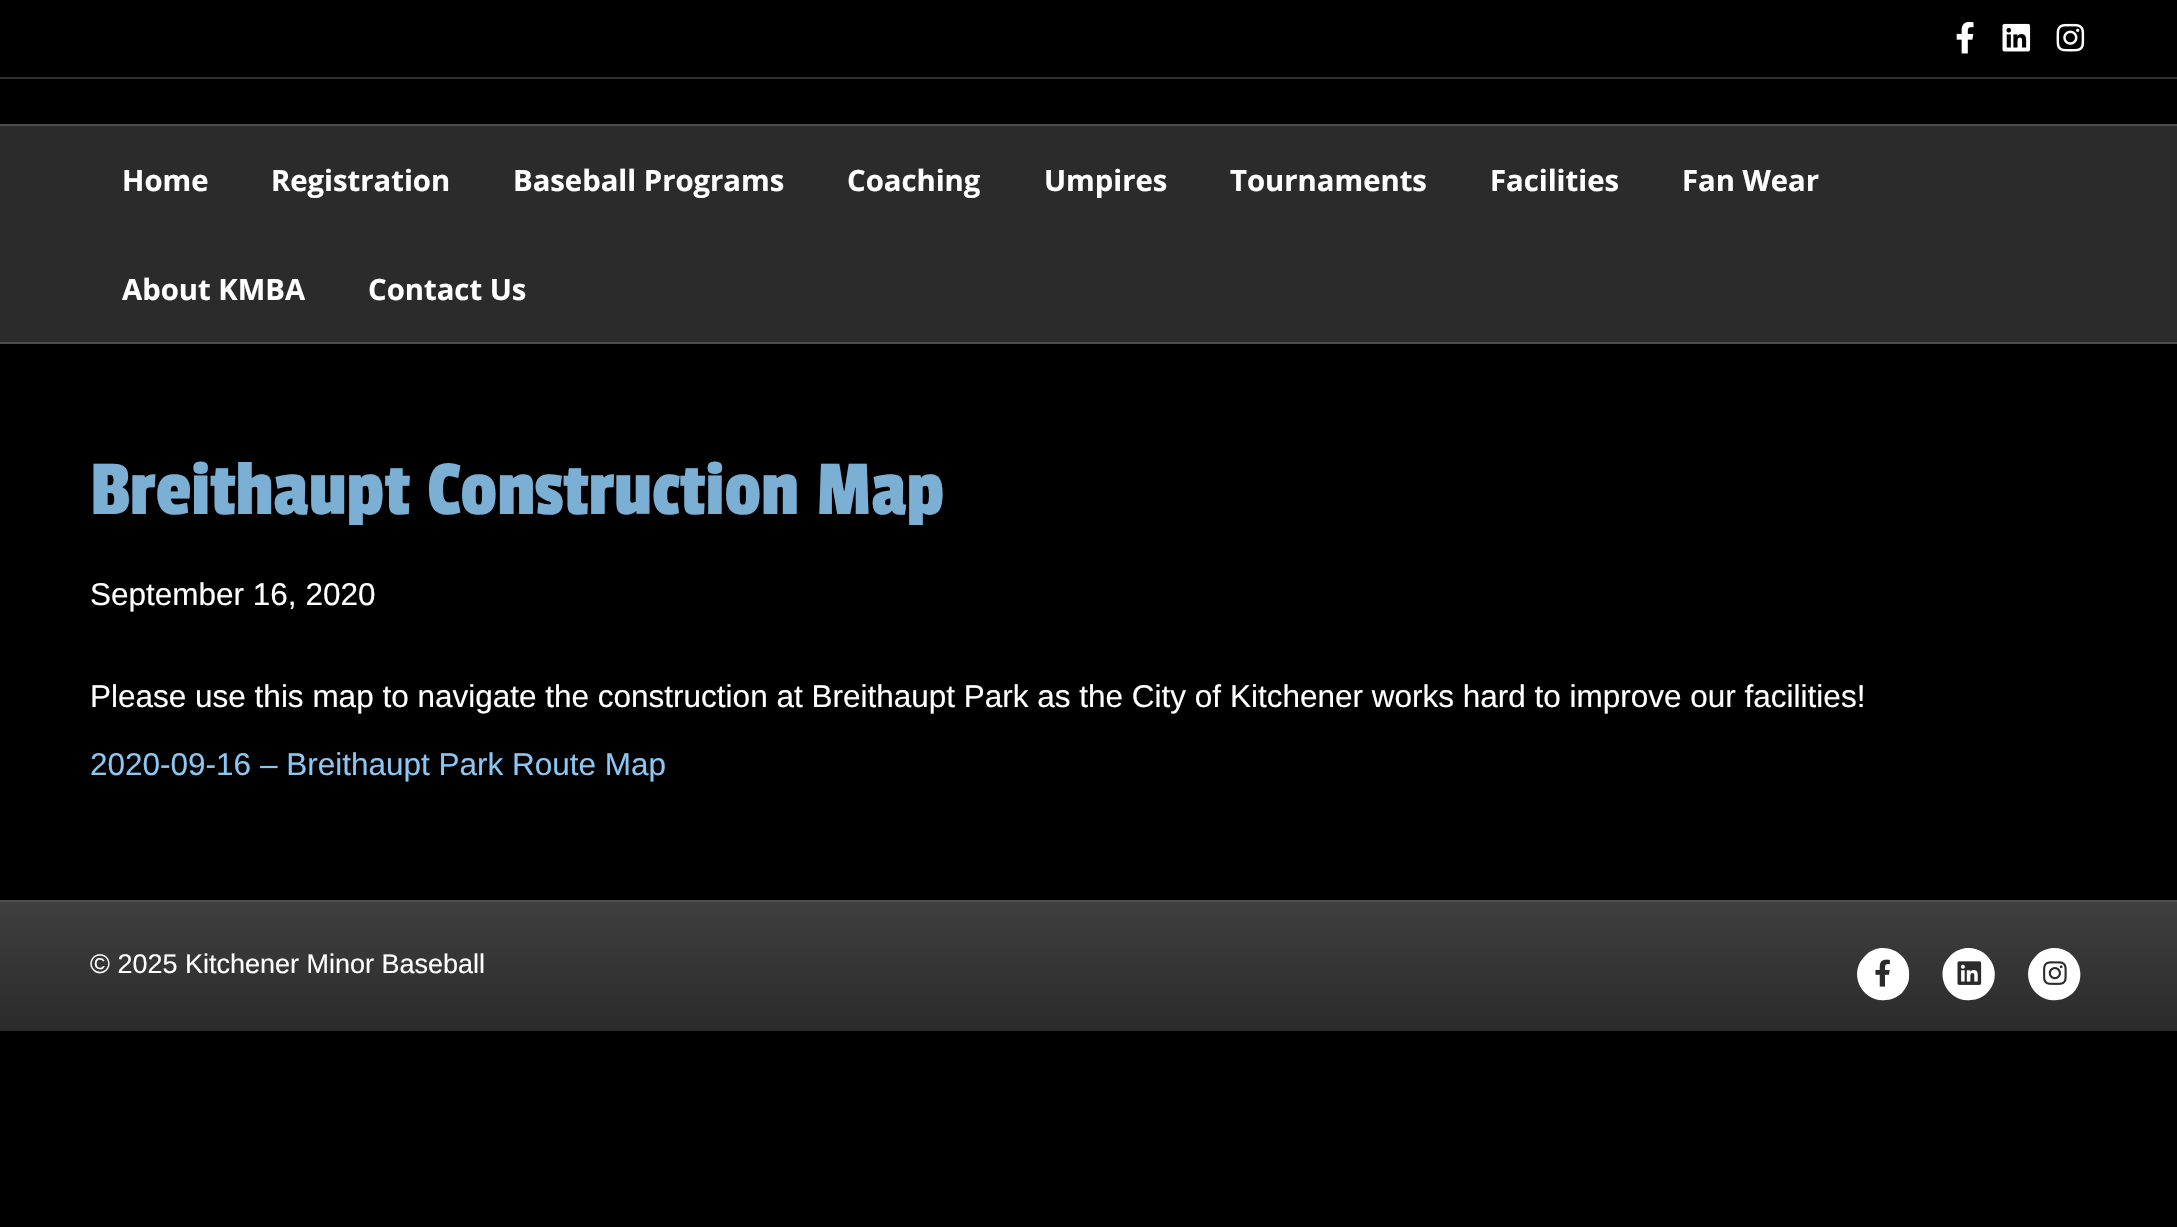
void draw(SkCanvas* canvas) {
    SkPaint paint;
    paint.setAntiAlias(true);
    auto face = [&](const char* family, int weight, float size, bool italic = false) {
        SkFontStyle style(weight, SkFontStyle::kNormal_Width,
            italic ? SkFontStyle::kItalic_Slant : SkFontStyle::kUpright_Slant);
        SkFont result(fontMgr->matchFamilyStyle(family, style), size);
        result.setSubpixel(true);
        return result;
    };
    auto write = [&](const char* s, float x, float y, const SkFont& font, SkColor color) {
        SkPaint ink(SkColor4f::FromColor(color));
        ink.setAntiAlias(true);
        canvas->drawString(s, x, y, font, ink);
    };
    auto block = [&](float x, float y, float w, float h, SkColor color) {
        SkPaint ink(SkColor4f::FromColor(color));
        ink.setAntiAlias(true);
        canvas->drawRect(SkRect::MakeXYWH(x, y, w, h), ink);
    };
    auto paste = [&](const char* path, float x, float y, float w, float h) {
        auto image = SkImages::DeferredFromEncodedData(SkData::MakeFromFileName(path));
        canvas->drawImageRect(image, SkRect::MakeXYWH(x, y, w, h), SkSamplingOptions());
    };
    canvas->clear(SK_ColorBLACK);
    block(0, 77, 2177, 2, SkColorSetRGB(48, 48, 48));
    paste("pic1.png", 1956, 21, 18, 33);
    paste("pic2.png", 2002, 23, 29, 29);
    paste("pic3.png", 2056, 23, 29, 29);
    block(0, 126, 2177, 216, SkColorSetRGB(43, 43, 43));
    block(0, 124, 2177, 2, SkColorSetRGB(76, 76, 76));
    block(0, 342, 2177, 2, SkColorSetRGB(76, 76, 76));
    auto kFont1 = face("Open Sans", 700, 29.25f);
    write("Home", 122, 191, kFont1, SK_ColorWHITE);
    write("Registration", 271, 191, kFont1, SK_ColorWHITE);
    write("Baseball Programs", 513, 191, kFont1, SK_ColorWHITE);
    write("Coaching", 847, 191, kFont1, SK_ColorWHITE);
    write("Umpires", 1044, 191, kFont1, SK_ColorWHITE);
    write("Tournaments", 1230, 191, kFont1, SK_ColorWHITE);
    write("Facilities", 1490, 191, kFont1, SK_ColorWHITE);
    write("Fan Wear", 1682, 191, kFont1, SK_ColorWHITE);
    write("About KMBA", 122, 300, kFont1, SK_ColorWHITE);
    write("Contact Us", 368, 300, kFont1, SK_ColorWHITE);
    auto kFont2 = face("Passion One", 400, 81);
    write("Breithaupt Construction Map", 90, 514, kFont2, SkColorSetRGB(123, 175, 212));
    auto kFont3 = face("Liberation Sans", 400, 31.5f);
    write("September 16, 2020", 90, 605, kFont3, SK_ColorWHITE);
    write("Please use this map to navigate the construction at Breithaupt Park as the City of Kitchener works hard to improve our facilities!", 90, 707, kFont3, SK_ColorWHITE);
    write("2020-09-16 – Breithaupt Park Route Map", 90, 775, kFont3, SkColorSetRGB(140, 198, 242));
    {
        const SkColor colors[] = {SkColorSetRGB(63, 63, 63), SkColorSetRGB(43, 43, 43)};
        const float stops[] = {0, 1};
        const SkPoint ends[] = {{1089, 902}, {1089, 1031}};
        paint.setShader(SkGradientShader::MakeLinear(ends, colors, stops, 2, SkTileMode::kClamp));
        paint.setAlpha(255);
    }
    canvas->drawRect(SkRect::MakeXYWH(0, 902, 2177, 129), paint);
    block(0, 900, 2177, 2, SkColorSetRGB(76, 76, 76));
    auto kFont4 = face("Liberation Sans", 400, 27);
    write("© 2025 Kitchener Minor Baseball", 90, 973, kFont4, SK_ColorWHITE);
    paint.setShader(nullptr);
    paint.setColor(SK_ColorWHITE);
    canvas->drawPath(SkPathBuilder().moveTo(1865, 956).cubicTo(1882, 938, 1912, 953, 1909, 977).cubicTo(1909, 983, 1906, 988, 1902, 993).cubicTo(1897, 997, 1892, 1000, 1886, 1000).cubicTo(1862, 1003, 1847, 973, 1865, 956).close().detach(), paint);
    paste("pic4.png", 1875, 959, 15, 28);
    canvas->drawPath(SkPathBuilder().moveTo(1950, 956).cubicTo(1955, 951, 1960, 949, 1966, 948).cubicTo(1990, 946, 2005, 975, 1987, 993).cubicTo(1983, 997, 1977, 1000, 1971, 1000).cubicTo(1947, 1003, 1933, 973, 1950, 956).close().detach(), paint);
    paste("pic5.png", 1957, 961, 25, 24);
    canvas->drawPath(SkPathBuilder().moveTo(2036, 956).cubicTo(2040, 951, 2046, 949, 2052, 948).cubicTo(2076, 946, 2090, 975, 2073, 993).cubicTo(2068, 997, 2063, 1000, 2057, 1000).cubicTo(2033, 1003, 2018, 973, 2036, 956).close().detach(), paint);
    paste("pic6.png", 2043, 961, 24, 24);
}
